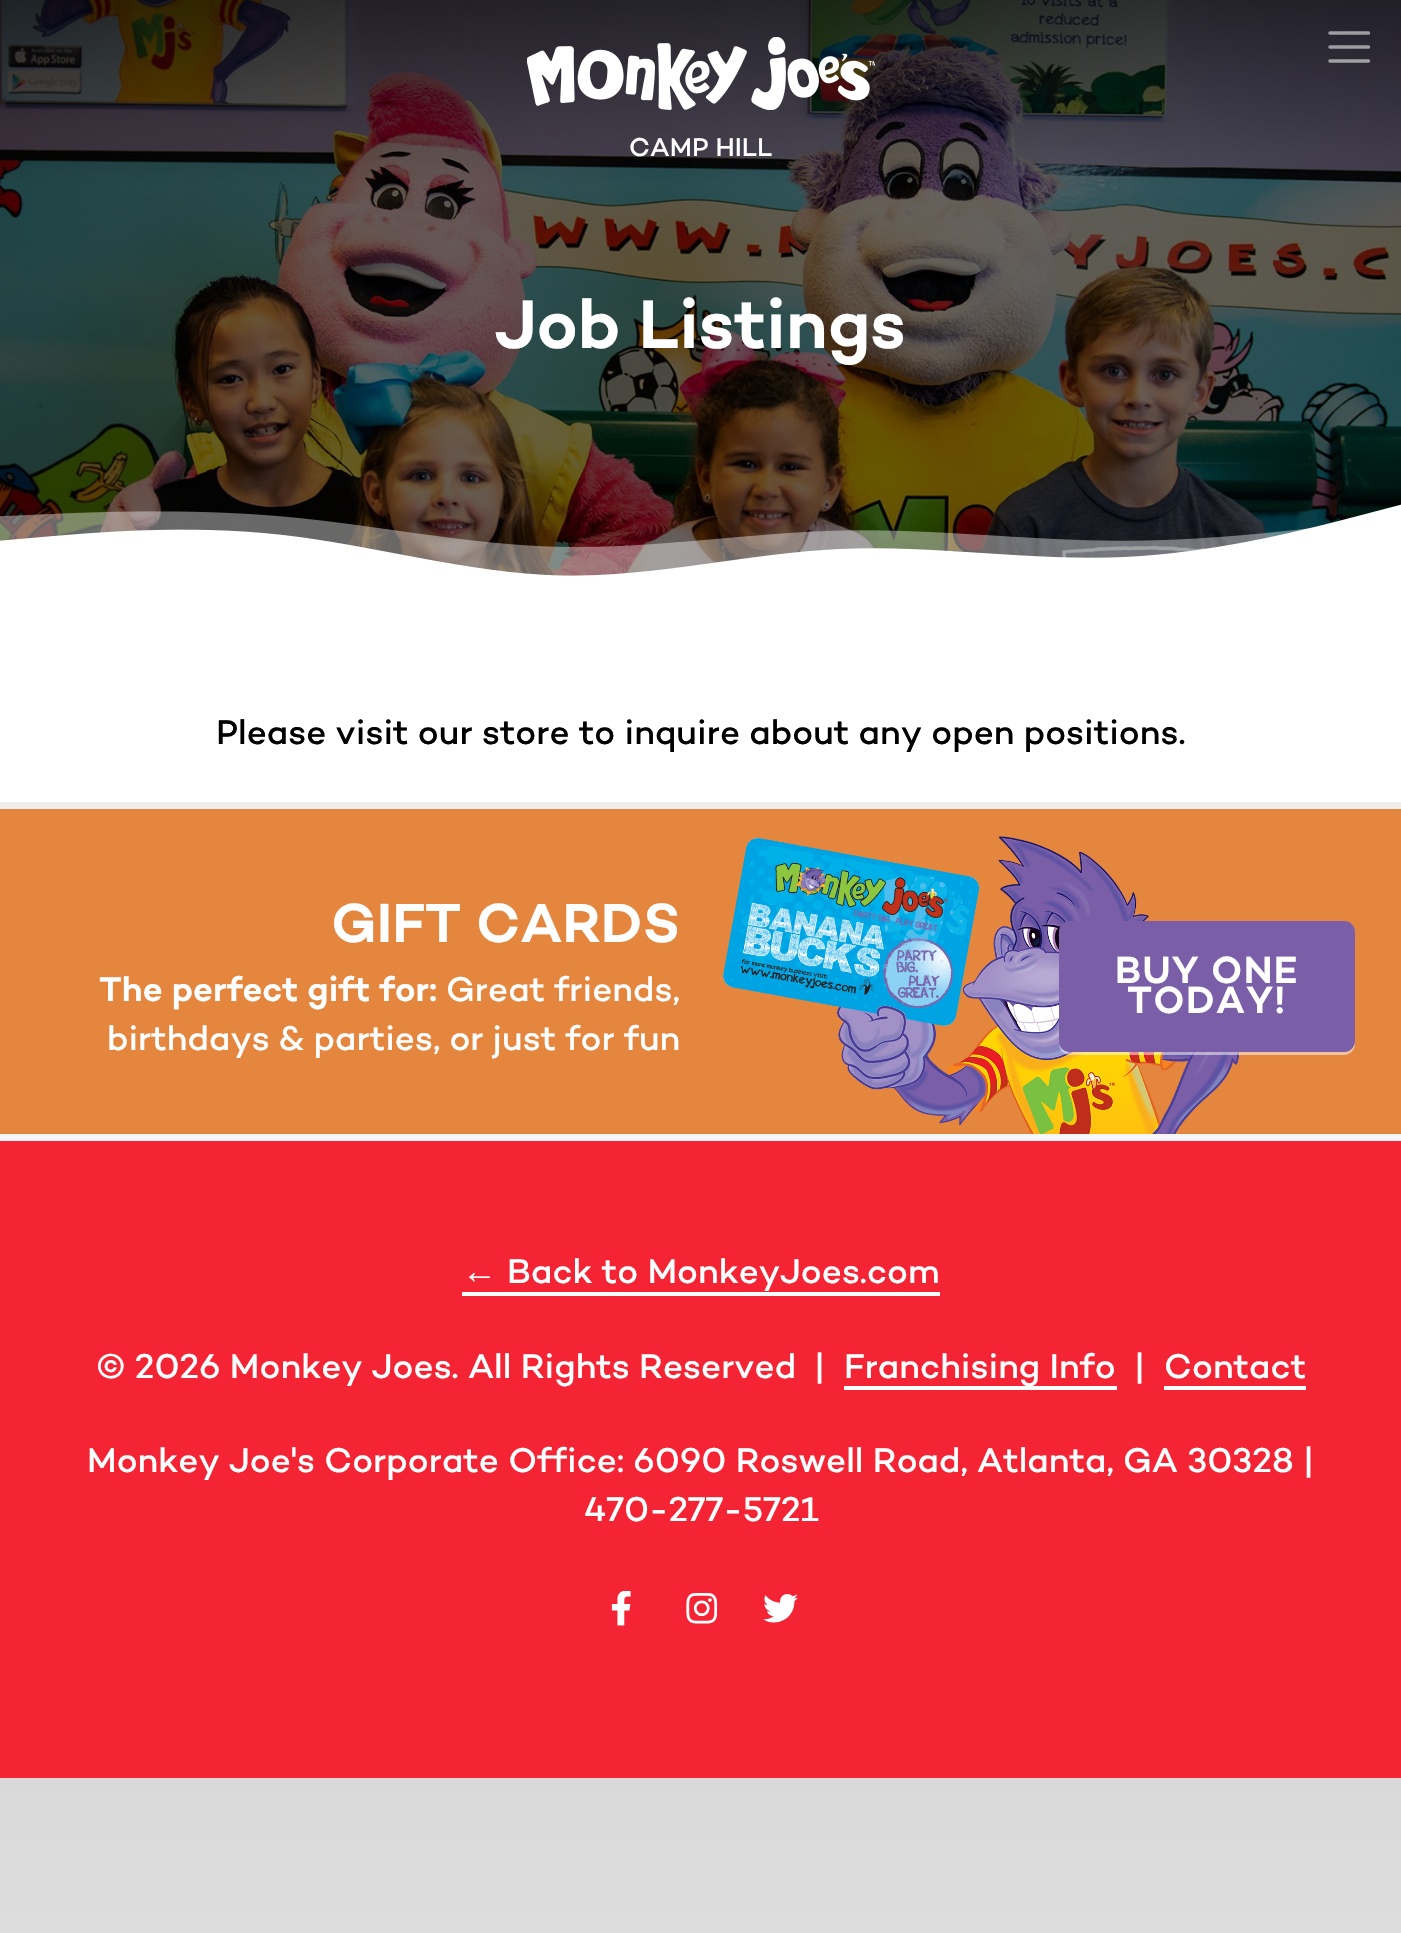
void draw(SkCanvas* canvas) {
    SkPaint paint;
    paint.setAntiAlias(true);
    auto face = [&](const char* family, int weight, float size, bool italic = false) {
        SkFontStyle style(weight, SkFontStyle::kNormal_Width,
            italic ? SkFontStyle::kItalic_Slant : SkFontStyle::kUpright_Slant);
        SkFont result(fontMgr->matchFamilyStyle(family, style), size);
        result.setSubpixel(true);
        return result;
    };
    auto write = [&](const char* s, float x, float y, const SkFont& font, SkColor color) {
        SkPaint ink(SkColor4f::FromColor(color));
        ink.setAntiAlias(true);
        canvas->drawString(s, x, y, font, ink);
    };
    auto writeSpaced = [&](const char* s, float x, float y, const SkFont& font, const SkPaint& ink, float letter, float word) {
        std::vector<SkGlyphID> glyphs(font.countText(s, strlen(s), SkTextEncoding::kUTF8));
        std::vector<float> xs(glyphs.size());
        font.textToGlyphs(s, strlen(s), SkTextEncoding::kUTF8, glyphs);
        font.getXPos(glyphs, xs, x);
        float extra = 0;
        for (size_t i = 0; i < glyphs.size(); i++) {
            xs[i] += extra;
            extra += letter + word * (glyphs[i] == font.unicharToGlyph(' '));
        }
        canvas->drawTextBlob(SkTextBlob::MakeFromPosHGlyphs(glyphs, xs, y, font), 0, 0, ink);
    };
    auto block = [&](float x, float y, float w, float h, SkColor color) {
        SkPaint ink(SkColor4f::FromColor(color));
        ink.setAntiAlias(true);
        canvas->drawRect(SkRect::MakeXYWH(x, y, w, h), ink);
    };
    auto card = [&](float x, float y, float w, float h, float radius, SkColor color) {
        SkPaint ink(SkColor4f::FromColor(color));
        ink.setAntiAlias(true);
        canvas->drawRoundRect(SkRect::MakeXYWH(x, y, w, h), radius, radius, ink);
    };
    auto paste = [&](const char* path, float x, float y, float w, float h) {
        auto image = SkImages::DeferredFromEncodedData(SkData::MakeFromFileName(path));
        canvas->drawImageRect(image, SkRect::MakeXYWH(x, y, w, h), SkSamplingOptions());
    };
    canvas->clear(SK_ColorWHITE);
    {
        const SkColor colors[] = {SkColorSetRGB(218, 218, 218), SkColorSetRGB(251, 251, 251)};
        const float stops[] = {0, 0.74f};
        const SkPoint ends[] = {{701, 0}, {701, 1778}};
        paint.setShader(SkGradientShader::MakeLinear(ends, colors, stops, 2, SkTileMode::kClamp));
        paint.setAlpha(255);
    }
    canvas->drawRect(SkRect::MakeXYWH(0, 802, 1401, 339), paint);
    {
        const SkColor colors[] = {SkColorSetRGB(217, 217, 217), SkColorSetRGB(251, 251, 251)};
        const float stops[] = {0, 0.74f};
        const SkPoint ends[] = {{701, 1778}, {701, 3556}};
        paint.setShader(SkGradientShader::MakeLinear(ends, colors, stops, 2, SkTileMode::kClamp));
        paint.setAlpha(255);
    }
    canvas->drawRect(SkRect::MakeXYWH(0, 1778, 1401, 155), paint);
    paste("pic2.png", 0, 0, 1401, 576);
    paint.setStyle(SkPaint::kStroke_Style);
    paint.setStrokeWidth(3.5f);
    paint.setStrokeCap(SkPaint::kRound_Cap);
    paint.setShader(nullptr);
    paint.setColor(SkColorSetARGB(140, 255, 255, 255));
    canvas->drawPath(SkPathBuilder().moveTo(1330, 33).lineTo(1368.5f, 33).moveTo(1330, 47).lineTo(1368.5f, 47).moveTo(1330, 61).lineTo(1368.5f, 61).detach(), paint);
    paste("pic1.png", 527, 37, 348, 73);
    auto kFont1 = face("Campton", 500, 26.25f);
    write("CAMP HILL", 629, 156, kFont1, SK_ColorWHITE);
    auto kFont2 = face("Campton", 600, 70);
    write("Job Listings", 495, 348, kFont2, SK_ColorWHITE);
    paste("pic3.png", 0, 504, 1401, 109);
    auto kFont3 = face("Campton", 500, 35);
    write("Please visit our store to inquire about any open positions.", 216, 744, kFont3, SK_ColorBLACK);
    block(0, 809, 1401, 325, SkColorSetRGB(229, 134, 63));
    auto kFont4 = face("Campton", 600, 56);
    write("GIFT CARDS", 331, 942, kFont4, SK_ColorWHITE);
    auto kFont5 = face("Campton", 600, 35);
    write("The perfect gift for:", 99, 1001, kFont5, SK_ColorWHITE);
    write("Great friends,", 446, 1001, kFont3, SK_ColorWHITE);
    write("birthdays & parties, or just for fun", 107, 1050, kFont3, SK_ColorWHITE);
    paste("pic4.png", 722, 836, 517, 298);
    paint.setStyle(SkPaint::kFill_Style);
    paint.setColor(SkColorSetARGB(128, 255, 255, 255));
    canvas->drawPath(SkPathBuilder().moveTo(1059, 1044).cubicTo(1059, 1050, 1064, 1055, 1070, 1055).lineTo(1344, 1055).cubicTo(1350, 1055, 1355, 1050, 1355, 1044).lineTo(1355, 935).lineTo(1354, 932).lineTo(1354, 1041).cubicTo(1354, 1047, 1350, 1052, 1344, 1052).lineTo(1069, 1052).cubicTo(1064, 1052, 1060, 1048, 1059, 1044).close().detach(), paint);
    card(1059, 921, 296, 131, 11, SkColorSetRGB(122, 94, 168));
    auto kFont6 = face("Campton", 600, 38.5f);
    paint.setColor(SK_ColorWHITE);
    writeSpaced("BUY ONE", 1115, 983, kFont6, paint, 1.25f, 0);
    writeSpaced("TODAY!", 1127, 1013, kFont6, paint, 1.25f, 0);
    block(0, 1141, 1401, 637, SkColorSetRGB(244, 36, 52));
    auto kFont7 = face("Liberation Sans", 400, 35);
    write("←", 462, 1283, kFont7, SK_ColorWHITE);
    block(462, 1292, 478, 4, SK_ColorWHITE);
    write("Back to MonkeyJoes.com", 507, 1283, kFont3, SK_ColorWHITE);
    write("© 2026 Monkey Joes. All Rights Reserved", 96, 1378, kFont3, SK_ColorWHITE);
    write("|", 814, 1378, kFont3, SK_ColorWHITE);
    block(844, 1386, 273, 4, SK_ColorWHITE);
    write("Franchising Info", 844, 1378, kFont3, SK_ColorWHITE);
    write("|", 1134, 1378, kFont3, SK_ColorWHITE);
    write("Contact", 1164, 1378, kFont3, SK_ColorWHITE);
    block(1164, 1386, 142, 4, SK_ColorWHITE);
    write("Monkey Joe's Corporate Office: 6090 Roswell Road, Atlanta, GA 30328 |", 87, 1472, kFont3, SK_ColorWHITE);
    write("470-277-5721", 584, 1521, kFont3, SK_ColorWHITE);
    paste("pic5.png", 611, 1591, 20, 35);
    paste("pic6.png", 686, 1593, 32, 31);
    paste("pic7.png", 763, 1594, 35, 29);
}
